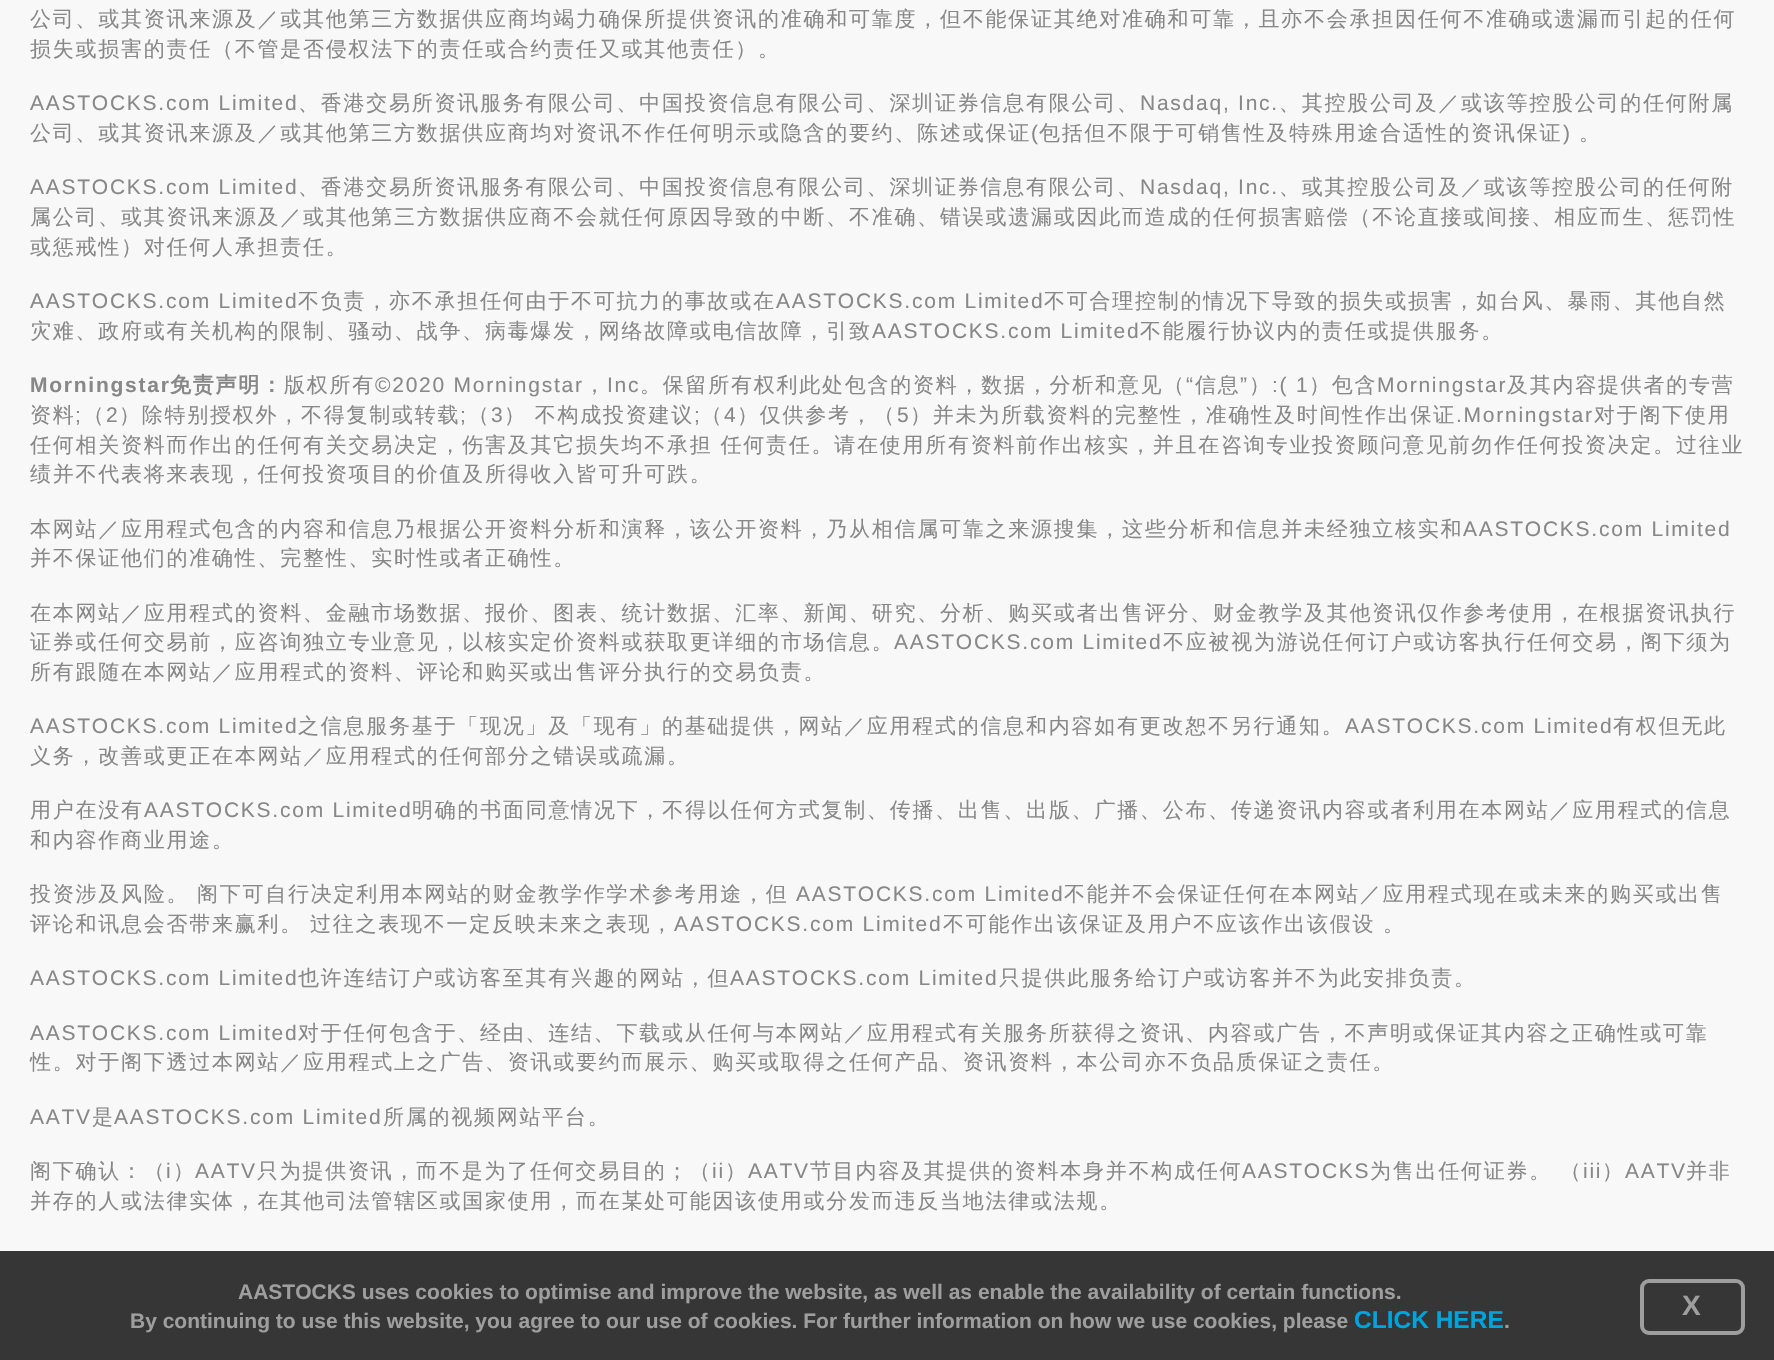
void draw(SkCanvas* canvas) {
    SkPaint paint;
    paint.setAntiAlias(true);
    auto face = [&](const char* family, int weight, float size, bool italic = false) {
        SkFontStyle style(weight, SkFontStyle::kNormal_Width,
            italic ? SkFontStyle::kItalic_Slant : SkFontStyle::kUpright_Slant);
        SkFont result(fontMgr->matchFamilyStyle(family, style), size);
        result.setSubpixel(true);
        return result;
    };
    auto write = [&](const char* s, float x, float y, const SkFont& font, SkColor color) {
        SkPaint ink(SkColor4f::FromColor(color));
        ink.setAntiAlias(true);
        canvas->drawString(s, x, y, font, ink);
    };
    auto writeSpaced = [&](const char* s, float x, float y, const SkFont& font, const SkPaint& ink, float letter, float word) {
        std::vector<SkGlyphID> glyphs(font.countText(s, strlen(s), SkTextEncoding::kUTF8));
        std::vector<float> xs(glyphs.size());
        font.textToGlyphs(s, strlen(s), SkTextEncoding::kUTF8, glyphs);
        font.getXPos(glyphs, xs, x);
        float extra = 0;
        for (size_t i = 0; i < glyphs.size(); i++) {
            xs[i] += extra;
            extra += letter + word * (glyphs[i] == font.unicharToGlyph(' '));
        }
        canvas->drawTextBlob(SkTextBlob::MakeFromPosHGlyphs(glyphs, xs, y, font), 0, 0, ink);
    };
    auto block = [&](float x, float y, float w, float h, SkColor color) {
        SkPaint ink(SkColor4f::FromColor(color));
        ink.setAntiAlias(true);
        canvas->drawRect(SkRect::MakeXYWH(x, y, w, h), ink);
    };
    canvas->clear(SkColorSetRGB(248, 248, 248));
    auto kFont1 = face("WenQuanYi Zen Hei", 500, 21);
    paint.setColor(SkColorSetRGB(136, 136, 136));
    writeSpaced("公司、或其资讯来源及／或其他第三方数据供应商均竭力确保所提供资讯的准确和可靠度，但不能保证其绝对准确和可靠，且亦不会承担因任何不准确或遗漏而引起的任何", 30, 26, kFont1, paint, 1.75f, 0);
    writeSpaced("损失或损害的责任（不管是否侵权法下的责任或合约责任又或其他责任）。", 30, 56, kFont1, paint, 1.75f, 0);
    auto kFont2 = face("Liberation Sans", 400, 21);
    writeSpaced("AASTOCKS.com Limited", 30, 110, kFont2, paint, 1.75f, 0);
    writeSpaced("、香港交易所资讯服务有限公司、中国投资信息有限公司、深圳证券信息有限公司、", 298, 110, kFont1, paint, 1.75f, 0);
    writeSpaced("Nasdaq, Inc.", 1140, 110, kFont2, paint, 1.75f, 0);
    writeSpaced("、其控股公司及／或该等控股公司的任何附属", 1279, 110, kFont1, paint, 1.75f, 0);
    writeSpaced("公司、或其资讯来源及／或其他第三方数据供应商均对资讯不作任何明示或隐含的要约、陈述或保证", 30, 140, kFont1, paint, 1.75f, 0);
    writeSpaced("(", 1031, 140, kFont2, paint, 1.75f, 0);
    writeSpaced("包括但不限于可销售性及特殊用途合适性的资讯保证", 1039, 140, kFont1, paint, 1.75f, 0);
    writeSpaced(")", 1563, 140, kFont2, paint, 1.75f, 0);
    writeSpaced("。", 1579, 140, kFont1, paint, 1.75f, 0);
    writeSpaced("AASTOCKS.com Limited", 30, 194, kFont2, paint, 1.75f, 0);
    writeSpaced("、香港交易所资讯服务有限公司、中国投资信息有限公司、深圳证券信息有限公司、", 298, 194, kFont1, paint, 1.75f, 0);
    writeSpaced("Nasdaq, Inc.", 1140, 194, kFont2, paint, 1.75f, 0);
    writeSpaced("、或其控股公司及／或该等控股公司的任何附", 1279, 194, kFont1, paint, 1.75f, 0);
    writeSpaced("属公司、或其资讯来源及／或其他第三方数据供应商不会就任何原因导致的中断、不准确、错误或遗漏或因此而造成的任何损害赔偿（不论直接或间接、相应而生、惩罚性", 30, 224, kFont1, paint, 1.75f, 0);
    writeSpaced("或惩戒性）对任何人承担责任。", 30, 254, kFont1, paint, 1.75f, 0);
    writeSpaced("AASTOCKS.com Limited", 30, 308, kFont2, paint, 1.75f, 0);
    writeSpaced("不负责，亦不承担任何由于不可抗力的事故或在", 298, 308, kFont1, paint, 1.75f, 0);
    writeSpaced("AASTOCKS.com Limited", 776, 308, kFont2, paint, 1.75f, 0);
    writeSpaced("不可合理控制的情况下导致的损失或损害，如台风、暴雨、其他自然", 1044, 308, kFont1, paint, 1.75f, 0);
    writeSpaced("灾难、政府或有关机构的限制、骚动、战争、病毒爆发，网络故障或电信故障，引致", 30, 338, kFont1, paint, 1.75f, 0);
    writeSpaced("AASTOCKS.com Limited", 872, 338, kFont2, paint, 1.75f, 0);
    writeSpaced("不能履行协议内的责任或提供服务。", 1140, 338, kFont1, paint, 1.75f, 0);
    auto kFont3 = face("Liberation Sans", 700, 21);
    writeSpaced("Morningstar", 30, 392, kFont3, paint, 1.75f, 0);
    auto kFont4 = face("WenQuanYi Zen Hei", 700, 21);
    writeSpaced("免责声明：", 170, 392, kFont4, paint, 1.75f, 0);
    writeSpaced("版权所有", 284, 392, kFont1, paint, 1.75f, 0);
    writeSpaced("©2020 Morningstar", 375, 392, kFont2, paint, 1.75f, 0);
    writeSpaced("，", 584, 392, kFont1, paint, 1.75f, 0);
    writeSpaced("Inc", 607, 392, kFont2, paint, 1.75f, 0);
    writeSpaced("。保留所有权利此处包含的资料，数据，分析和意见（", 640, 392, kFont1, paint, 1.75f, 0);
    writeSpaced("“", 1186, 392, kFont2, paint, 1.75f, 0);
    writeSpaced("信息", 1195, 392, kFont1, paint, 1.75f, 0);
    writeSpaced("”", 1240, 392, kFont2, paint, 1.75f, 0);
    writeSpaced("）", 1249, 392, kFont1, paint, 1.75f, 0);
    writeSpaced(":( 1", 1272, 392, kFont2, paint, 1.75f, 0);
    writeSpaced("）包含", 1309, 392, kFont1, paint, 1.75f, 0);
    writeSpaced("Morningstar", 1377, 392, kFont2, paint, 1.75f, 0);
    writeSpaced("及其内容提供者的专营", 1507, 392, kFont1, paint, 1.75f, 0);
    writeSpaced("资料", 30, 422, kFont1, paint, 1.75f, 0);
    writeSpaced(";", 75, 422, kFont2, paint, 1.75f, 0);
    writeSpaced("（", 83, 422, kFont1, paint, 1.75f, 0);
    writeSpaced("2", 106, 422, kFont2, paint, 1.75f, 0);
    writeSpaced("）除特别授权外，不得复制或转载", 119, 422, kFont1, paint, 1.75f, 0);
    writeSpaced(";", 460, 422, kFont2, paint, 1.75f, 0);
    writeSpaced("（", 468, 422, kFont1, paint, 1.75f, 0);
    writeSpaced("3", 491, 422, kFont2, paint, 1.75f, 0);
    writeSpaced("） 不构成投资建议", 504, 422, kFont1, paint, 1.75f, 0);
    writeSpaced(";", 694, 422, kFont2, paint, 1.75f, 0);
    writeSpaced("（", 701, 422, kFont1, paint, 1.75f, 0);
    writeSpaced("4", 724, 422, kFont2, paint, 1.75f, 0);
    writeSpaced("）仅供参考，（", 737, 422, kFont1, paint, 1.75f, 0);
    writeSpaced("5", 897, 422, kFont2, paint, 1.75f, 0);
    writeSpaced("）并未为所载资料的完整性，准确性及时间性作出保证", 910, 422, kFont1, paint, 1.75f, 0);
    writeSpaced(".Morningstar", 1456, 422, kFont2, paint, 1.75f, 0);
    writeSpaced("对于阁下使用", 1594, 422, kFont1, paint, 1.75f, 0);
    writeSpaced("任何相关资料而作出的任何有关交易决定，伤害及其它损失均不承担 任何责任。请在使用所有资料前作出核实，并且在咨询专业投资顾问意见前勿作任何投资决定。过往业", 30, 452, kFont1, paint, 1.75f, 0);
    writeSpaced("绩并不代表将来表现，任何投资项目的价值及所得收入皆可升可跌。", 30, 481, kFont1, paint, 1.75f, 0);
    writeSpaced("本网站／应用程式包含的内容和信息乃根据公开资料分析和演释，该公开资料，乃从相信属可靠之来源搜集，这些分析和信息并未经独立核实和", 30, 536, kFont1, paint, 1.75f, 0);
    writeSpaced("AASTOCKS.com Limited", 1463, 536, kFont2, paint, 1.75f, 0);
    writeSpaced("并不保证他们的准确性、完整性、实时性或者正确性。", 30, 565, kFont1, paint, 1.75f, 0);
    writeSpaced("在本网站／应用程式的资料、金融市场数据、报价、图表、统计数据、汇率、新闻、研究、分析、购买或者出售评分、财金教学及其他资讯仅作参考使用，在根据资讯执行", 30, 620, kFont1, paint, 1.75f, 0);
    writeSpaced("证券或任何交易前，应咨询独立专业意见，以核实定价资料或获取更详细的市场信息。", 30, 649, kFont1, paint, 1.75f, 0);
    writeSpaced("AASTOCKS.com Limited", 894, 649, kFont2, paint, 1.75f, 0);
    writeSpaced("不应被视为游说任何订户或访客执行任何交易，阁下须为", 1163, 649, kFont1, paint, 1.75f, 0);
    writeSpaced("所有跟随在本网站／应用程式的资料、评论和购买或出售评分执行的交易负责。", 30, 679, kFont1, paint, 1.75f, 0);
    writeSpaced("AASTOCKS.com Limited", 30, 733, kFont2, paint, 1.75f, 0);
    writeSpaced("之信息服务基于「现况」及「现有」的基础提供，网站／应用程式的信息和内容如有更改恕不另行通知。", 298, 733, kFont1, paint, 1.75f, 0);
    writeSpaced("AASTOCKS.com Limited", 1345, 733, kFont2, paint, 1.75f, 0);
    writeSpaced("有权但无此", 1613, 733, kFont1, paint, 1.75f, 0);
    writeSpaced("义务，改善或更正在本网站／应用程式的任何部分之错误或疏漏。", 30, 763, kFont1, paint, 1.75f, 0);
    writeSpaced("用户在没有", 30, 817, kFont1, paint, 1.75f, 0);
    writeSpaced("AASTOCKS.com Limited", 144, 817, kFont2, paint, 1.75f, 0);
    writeSpaced("明确的书面同意情况下，不得以任何方式复制、传播、出售、出版、广播、公布、传递资讯内容或者利用在本网站／应用程式的信息", 412, 817, kFont1, paint, 1.75f, 0);
    writeSpaced("和内容作商业用途。", 30, 847, kFont1, paint, 1.75f, 0);
    writeSpaced("投资涉及风险。", 30, 901, kFont1, paint, 1.75f, 0);
    writeSpaced("阁下可自行决定利用本网站的财金教学作学术参考用途，但", 197, 901, kFont1, paint, 1.75f, 0);
    writeSpaced("AASTOCKS.com Limited", 796, 901, kFont2, paint, 1.75f, 0);
    writeSpaced("不能并不会保证任何在本网站／应用程式现在或未来的购买或出售", 1064, 901, kFont1, paint, 1.75f, 0);
    writeSpaced("评论和讯息会否带来赢利。", 30, 931, kFont1, paint, 1.75f, 0);
    writeSpaced("过往之表现不一定反映未来之表现，", 310, 931, kFont1, paint, 1.75f, 0);
    writeSpaced("AASTOCKS.com Limited", 674, 931, kFont2, paint, 1.75f, 0);
    writeSpaced("不可能作出该保证及用户不应该作出该假设", 943, 931, kFont1, paint, 1.75f, 0);
    writeSpaced("。", 1383, 931, kFont1, paint, 1.75f, 0);
    writeSpaced("AASTOCKS.com Limited", 30, 985, kFont2, paint, 1.75f, 0);
    writeSpaced("也许连结订户或访客至其有兴趣的网站，但", 298, 985, kFont1, paint, 1.75f, 0);
    writeSpaced("AASTOCKS.com Limited", 730, 985, kFont2, paint, 1.75f, 0);
    writeSpaced("只提供此服务给订户或访客并不为此安排负责。", 999, 985, kFont1, paint, 1.75f, 0);
    writeSpaced("AASTOCKS.com Limited", 30, 1040, kFont2, paint, 1.75f, 0);
    writeSpaced("对于任何包含于、经由、连结、下载或从任何与本网站／应用程式有关服务所获得之资讯、内容或广告，不声明或保证其内容之正确性或可靠", 298, 1040, kFont1, paint, 1.75f, 0);
    writeSpaced("性。对于阁下透过本网站／应用程式上之广告、资讯或要约而展示、购买或取得之任何产品、资讯资料，本公司亦不负品质保证之责任。", 30, 1069, kFont1, paint, 1.75f, 0);
    writeSpaced("AATV", 30, 1124, kFont2, paint, 1.75f, 0);
    writeSpaced("是", 92, 1124, kFont1, paint, 1.75f, 0);
    writeSpaced("AASTOCKS.com Limited", 114, 1124, kFont2, paint, 1.75f, 0);
    writeSpaced("所属的视频网站平台。", 383, 1124, kFont1, paint, 1.75f, 0);
    writeSpaced("阁下确认：（", 30, 1178, kFont1, paint, 1.75f, 0);
    writeSpaced("i", 166, 1178, kFont2, paint, 1.75f, 0);
    writeSpaced("）", 173, 1178, kFont1, paint, 1.75f, 0);
    writeSpaced("AATV", 195, 1178, kFont2, paint, 1.75f, 0);
    writeSpaced("只为提供资讯，而不是为了任何交易目的；（", 257, 1178, kFont1, paint, 1.75f, 0);
    writeSpaced("ii", 712, 1178, kFont2, paint, 1.75f, 0);
    writeSpaced("）", 725, 1178, kFont1, paint, 1.75f, 0);
    writeSpaced("AATV", 748, 1178, kFont2, paint, 1.75f, 0);
    writeSpaced("节目内容及其提供的资料本身并不构成任何", 810, 1178, kFont1, paint, 1.75f, 0);
    writeSpaced("AASTOCKS", 1242, 1178, kFont2, paint, 1.75f, 0);
    writeSpaced("为售出任何证券。 （", 1370, 1178, kFont1, paint, 1.75f, 0);
    writeSpaced("iii", 1583, 1178, kFont2, paint, 1.75f, 0);
    writeSpaced("）", 1602, 1178, kFont1, paint, 1.75f, 0);
    writeSpaced("AATV", 1625, 1178, kFont2, paint, 1.75f, 0);
    writeSpaced("并非", 1686, 1178, kFont1, paint, 1.75f, 0);
    writeSpaced("并存的人或法律实体，在其他司法管辖区或国家使用，而在某处可能因该使用或分发而违反当地法律或法规。", 30, 1208, kFont1, paint, 1.75f, 0);
    block(0, 1251, 1774, 109, SkColorSetRGB(54, 54, 54));
    write("AASTOCKS uses cookies to optimise and improve the website, as well as enable the availability of certain functions.", 238, 1299, kFont3, SkColorSetRGB(158, 158, 158));
    write("By continuing to use this website, you agree to our use of cookies. For further information on how we use cookies, please", 130, 1328, kFont3, SkColorSetRGB(158, 158, 158));
    auto kFont5 = face("Liberation Sans", 700, 24.5f);
    write("CLICK HERE", 1354, 1328, kFont5, SkColorSetRGB(0, 165, 223));
    write(".", 1504, 1328, kFont3, SkColorSetRGB(158, 158, 158));
    paint.setStyle(SkPaint::kStroke_Style);
    paint.setStrokeWidth(4);
    paint.setColor(SkColorSetRGB(158, 158, 158));
    canvas->drawRoundRect(SkRect::MakeXYWH(1642, 1281, 101, 52), 7, 7, paint);
    auto kFont6 = face("Liberation Sans", 700, 28);
    paint.setStyle(SkPaint::kFill_Style);
    writeSpaced("X", 1682, 1315, kFont6, paint, 1.75f, 0);
}
